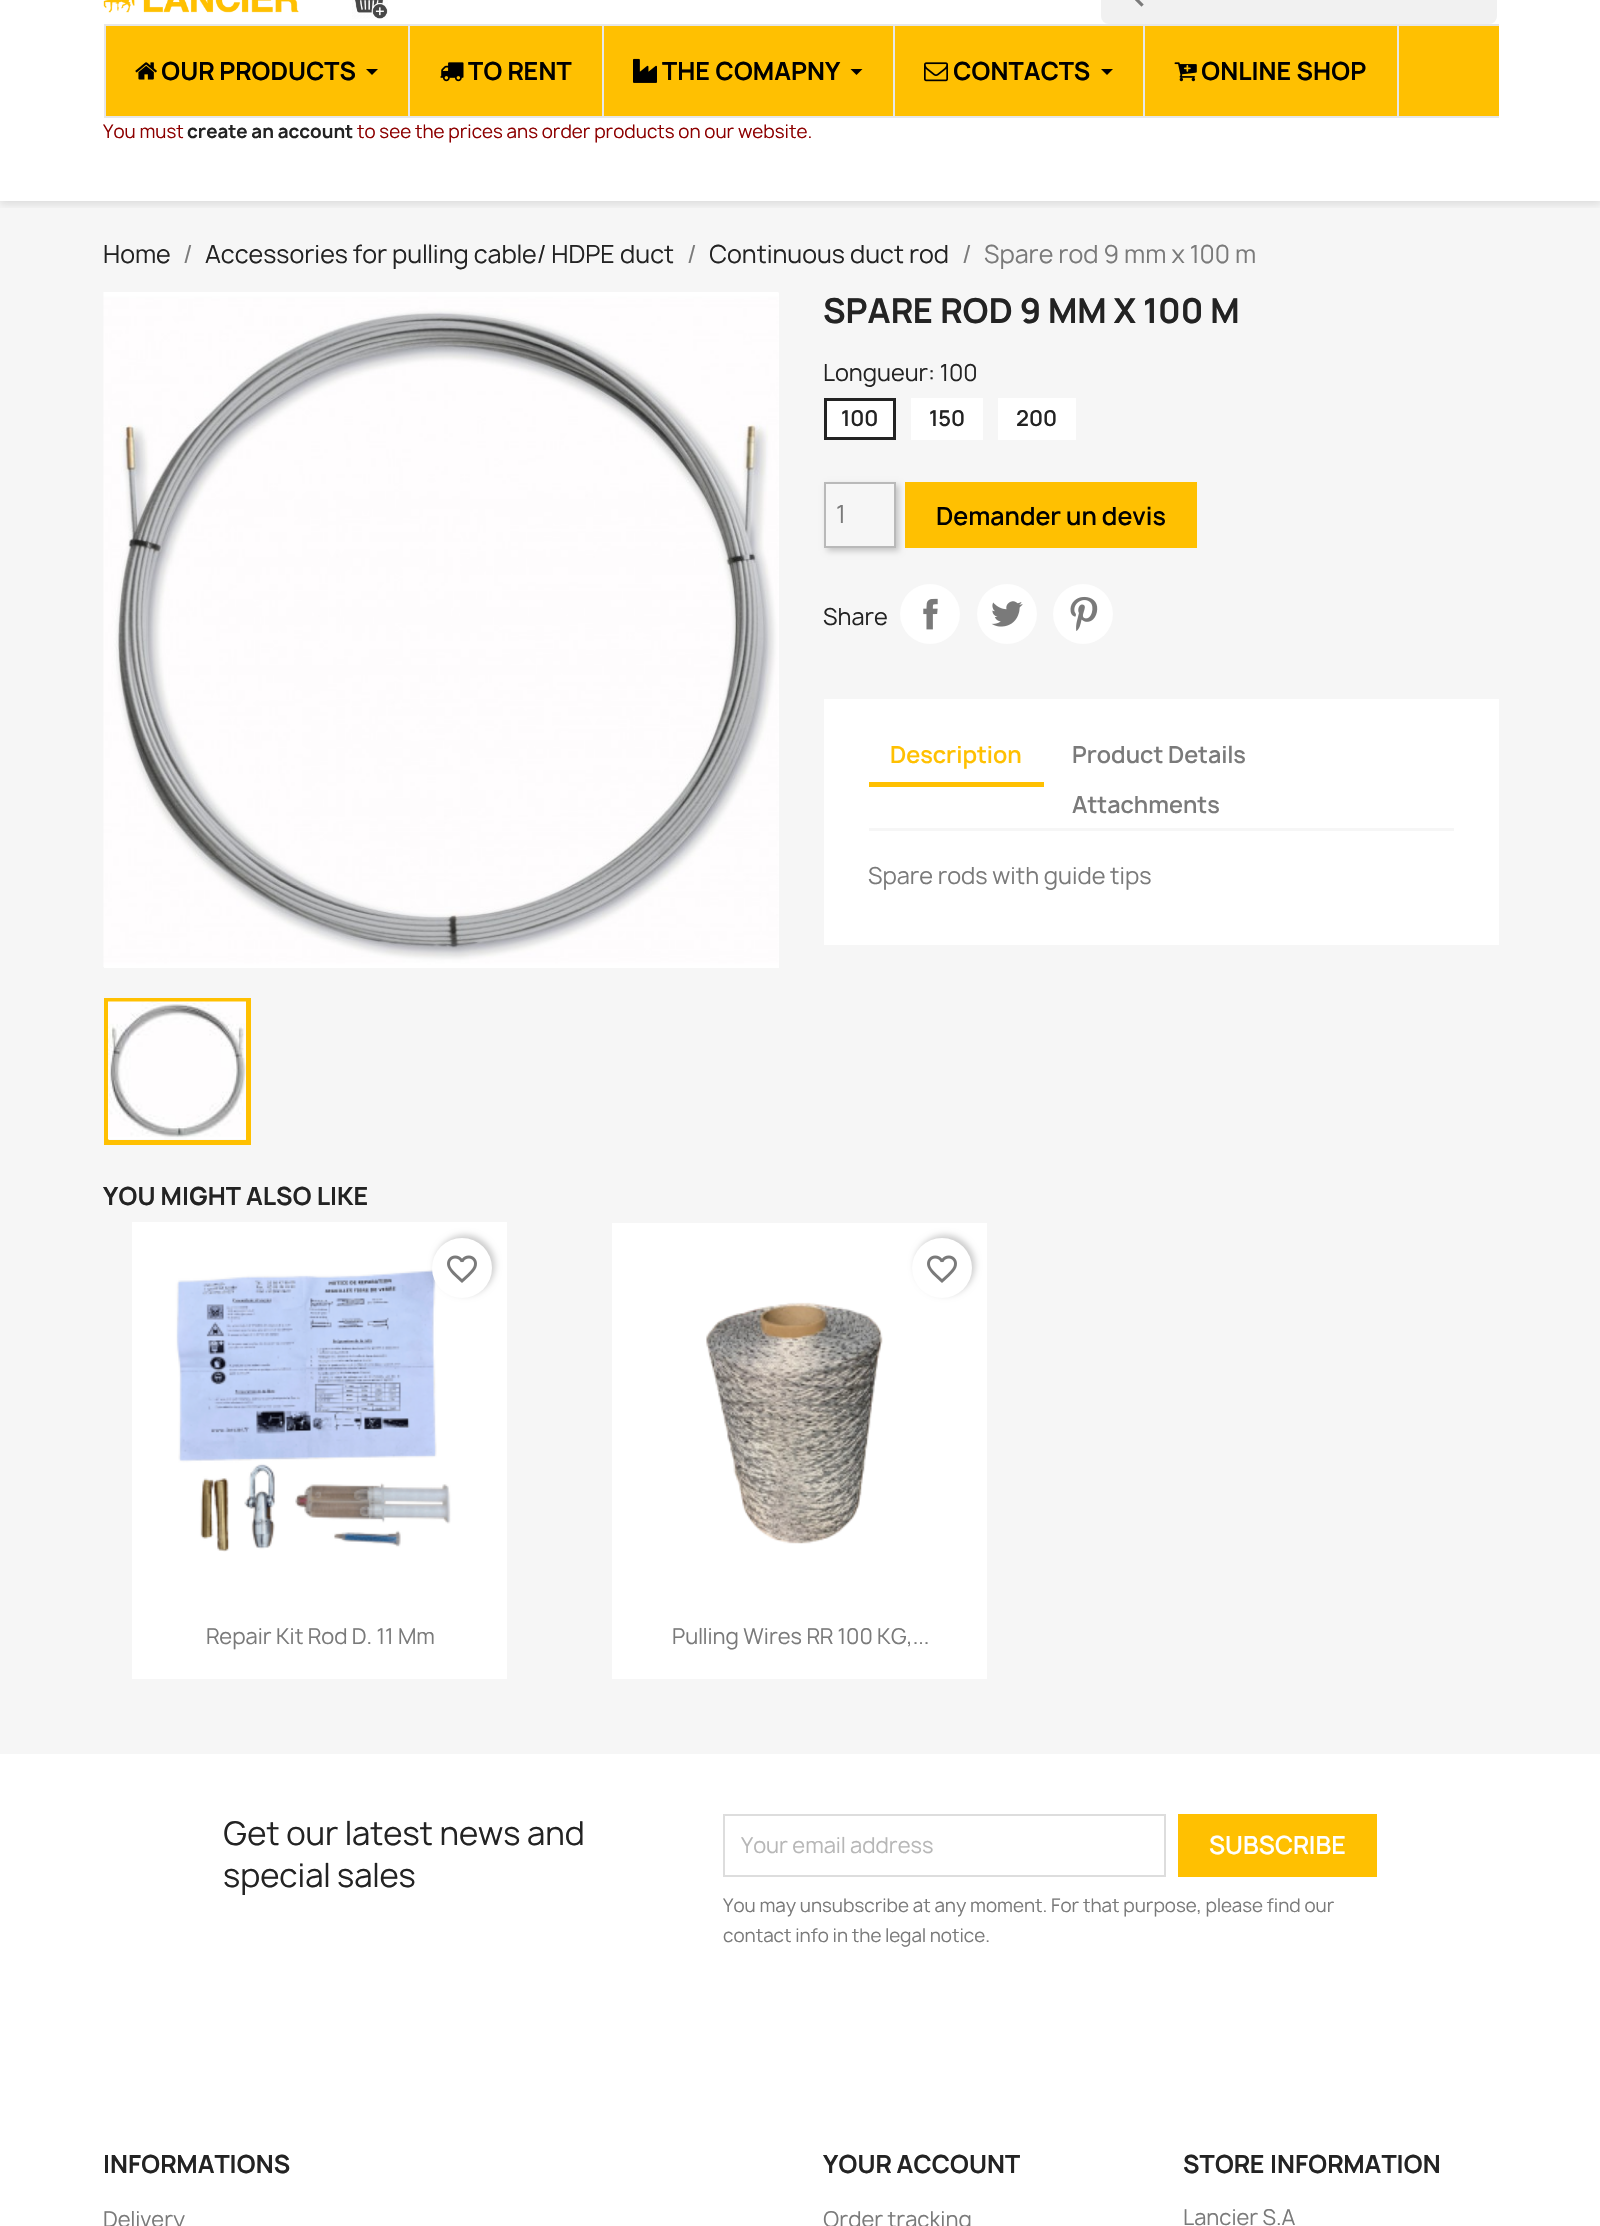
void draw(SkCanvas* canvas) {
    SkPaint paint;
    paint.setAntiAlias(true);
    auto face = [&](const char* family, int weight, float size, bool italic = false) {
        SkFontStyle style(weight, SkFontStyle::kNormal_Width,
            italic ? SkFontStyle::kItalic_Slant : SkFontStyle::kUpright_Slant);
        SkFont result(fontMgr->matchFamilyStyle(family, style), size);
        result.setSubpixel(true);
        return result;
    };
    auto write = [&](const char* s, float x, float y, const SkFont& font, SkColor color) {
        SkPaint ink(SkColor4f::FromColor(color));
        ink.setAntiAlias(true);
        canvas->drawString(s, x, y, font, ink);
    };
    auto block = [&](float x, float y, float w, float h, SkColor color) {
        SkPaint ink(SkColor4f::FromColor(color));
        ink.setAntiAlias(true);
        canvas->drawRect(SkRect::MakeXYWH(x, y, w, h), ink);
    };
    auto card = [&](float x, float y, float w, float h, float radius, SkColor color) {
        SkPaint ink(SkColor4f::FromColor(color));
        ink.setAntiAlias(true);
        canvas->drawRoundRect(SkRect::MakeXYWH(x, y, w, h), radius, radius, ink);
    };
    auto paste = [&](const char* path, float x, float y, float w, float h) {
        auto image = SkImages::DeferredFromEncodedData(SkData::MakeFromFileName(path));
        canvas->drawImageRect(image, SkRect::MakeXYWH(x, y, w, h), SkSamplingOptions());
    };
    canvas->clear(SK_ColorWHITE);
    block(0, 201, 1600, 1553, SkColorSetRGB(246, 246, 246));
    canvas->save();
    canvas->clipRect(SkRect::MakeXYWH(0, 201, 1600, 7));
    paint.setColor(SkColorSetARGB(28, 0, 0, 0));
    paint.setMaskFilter(SkMaskFilter::MakeBlur(kNormal_SkBlurStyle, 4));
    canvas->drawRect(SkRect::MakeXYWH(0, -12, 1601, 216), paint);
    paint.setMaskFilter(nullptr);
    canvas->restore();
    paste("pic1.png", 103, 0, 196, 13);
    paste("pic2.png", 352, 0, 36, 19);
    card(1101, -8, 396, 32, 8, SkColorSetRGB(241, 241, 241));
    paste("pic3.png", 1135, 0, 9, 7);
    block(104, 24, 1395, 2, SkColorSetRGB(231, 231, 231));
    block(104, 116, 1395, 2, SkColorSetRGB(231, 231, 231));
    block(106, 26, 1393, 90, SkColorSetRGB(255, 192, 1));
    block(408, 26, 2, 90, SkColorSetRGB(231, 231, 231));
    block(104, 26, 2, 90, SkColorSetRGB(231, 231, 231));
    paste("pic4.png", 135, 62, 22, 18);
    auto kFont1 = face("Manrope", 700, 24);
    write("OUR PRODUCTS", 161, 80, kFont1, SK_ColorBLACK);
    paint.setColor(SK_ColorBLACK);
    canvas->drawPath(SkPathBuilder().moveTo(366, 69).lineTo(378, 69).lineTo(372, 75).close().detach(), paint);
    block(602, 26, 2, 90, SkColorSetRGB(231, 231, 231));
    paste("pic5.png", 440, 62, 24, 20);
    write("TO RENT", 468, 80, kFont1, SK_ColorBLACK);
    block(893, 26, 2, 90, SkColorSetRGB(231, 231, 231));
    paste("pic6.png", 633, 58, 24, 25);
    write("THE COMAPNY", 662, 80, kFont1, SK_ColorBLACK);
    canvas->drawPath(SkPathBuilder().moveTo(850.5f, 69).lineTo(862.5f, 69).lineTo(856.5f, 75).close().detach(), paint);
    block(1143, 26, 2, 90, SkColorSetRGB(231, 231, 231));
    paste("pic7.png", 924, 62, 24, 20);
    write("CONTACTS", 953, 80, kFont1, SK_ColorBLACK);
    canvas->drawPath(SkPathBuilder().moveTo(1101, 69).lineTo(1113, 69).lineTo(1107, 75).close().detach(), paint);
    block(1397, 26, 2, 90, SkColorSetRGB(231, 231, 231));
    paste("pic8.png", 1174, 62, 23, 20);
    write("ONLINE SHOP", 1201, 80, kFont1, SK_ColorBLACK);
    auto kFont2 = face("Manrope", 400, 18);
    write("You must", 103, 138, kFont2, SkColorSetRGB(141, 0, 0));
    auto kFont3 = face("Manrope", 700, 18);
    write("create an account", 187, 138, kFont3, SkColorSetRGB(35, 35, 35));
    write("to see the prices ans order products on our website.", 357, 138, kFont2, SkColorSetRGB(141, 0, 0));
    auto kFont4 = face("Manrope", 400, 24);
    write("Home", 103, 263, kFont4, SkColorSetRGB(35, 35, 35));
    write("/", 183, 263, kFont4, SkColorSetRGB(122, 122, 122));
    write("Accessories for pulling cable/ HDPE duct", 205, 263, kFont4, SkColorSetRGB(35, 35, 35));
    write("/", 687, 263, kFont4, SkColorSetRGB(122, 122, 122));
    write("Continuous duct rod", 709, 263, kFont4, SkColorSetRGB(35, 35, 35));
    write("/", 962, 263, kFont4, SkColorSetRGB(122, 122, 122));
    write("Spare rod 9 mm x 100 m", 984, 263, kFont4, SkColorSetRGB(122, 122, 122));
    block(104, 293, 675, 675, SK_ColorWHITE);
    paste("pic9.png", 103, 292, 676, 675);
    paint.setStyle(SkPaint::kStroke_Style);
    paint.setStrokeWidth(5);
    paint.setColor(SkColorSetRGB(255, 192, 1));
    canvas->drawRect(SkRect::MakeXYWH(106.5f, 1000.5f, 142, 142), paint);
    paste("pic10.png", 108, 1001, 138, 139);
    auto kFont5 = face("Manrope", 700, 33);
    write("SPARE ROD 9 MM X 100 M", 823, 323, kFont5, SkColorSetRGB(35, 35, 35));
    auto kFont6 = face("Manrope", 400, 22.5f);
    write("Longueur: 100", 823, 381, kFont6, SkColorSetRGB(35, 35, 35));
    paint.setStyle(SkPaint::kFill_Style);
    paint.setColor(SK_ColorWHITE);
    canvas->drawRect(SkRect::MakeXYWH(825.5f, 399.5f, 69, 39), paint);
    paint.setStyle(SkPaint::kStroke_Style);
    paint.setStrokeWidth(3);
    paint.setColor(SkColorSetRGB(35, 35, 35));
    canvas->drawRect(SkRect::MakeXYWH(825.5f, 399.5f, 69, 39), paint);
    auto kFont7 = face("Manrope", 600, 21);
    write("100", 841, 426, kFont7, SkColorSetRGB(35, 35, 35));
    block(911, 398, 72, 42, SK_ColorWHITE);
    write("150", 929, 426, kFont7, SkColorSetRGB(35, 35, 35));
    block(998, 398, 78, 42, SK_ColorWHITE);
    write("200", 1016, 426, kFont7, SkColorSetRGB(35, 35, 35));
    block(905, 482, 292, 66, SkColorSetRGB(255, 192, 1));
    paint.setStyle(SkPaint::kFill_Style);
    paint.setColor(SkColorSetARGB(51, 0, 0, 0));
    paint.setMaskFilter(SkMaskFilter::MakeBlur(kNormal_SkBlurStyle, 3));
    canvas->drawRect(SkRect::MakeXYWH(827, 485, 72, 66), paint);
    paint.setMaskFilter(nullptr);
    paint.setColor(SkColorSetRGB(246, 246, 246));
    canvas->drawRect(SkRect::MakeXYWH(825, 483, 70, 64), paint);
    paint.setStyle(SkPaint::kStroke_Style);
    paint.setStrokeWidth(2);
    paint.setColor(SkColorSetRGB(185, 185, 185));
    canvas->drawRect(SkRect::MakeXYWH(825, 483, 70, 64), paint);
    write("1", 836, 523, kFont4, SkColorSetRGB(122, 122, 122));
    auto kFont8 = face("Manrope", 600, 24);
    write("Demander un devis", 936, 525, kFont8, SK_ColorBLACK);
    write("Share", 823, 625, kFont6, SkColorSetRGB(35, 35, 35));
    paint.setStyle(SkPaint::kFill_Style);
    paint.setColor(SK_ColorWHITE);
    canvas->drawCircle(930, 614, 30, paint);
    paste("pic11.png", 923, 598, 15, 32);
    canvas->drawCircle(1007, 614, 30, paint);
    paste("pic12.png", 991, 601, 32, 26);
    canvas->drawCircle(1083, 614, 30, paint);
    paste("pic13.png", 1070, 596, 28, 35);
    block(824, 699, 675, 246, SK_ColorWHITE);
    block(869, 828, 585, 3, SkColorSetRGB(246, 246, 246));
    block(869, 782, 175, 5, SkColorSetRGB(255, 192, 1));
    auto kFont9 = face("Manrope", 600, 22.5f);
    write("Description", 890, 763, kFont9, SkColorSetRGB(255, 192, 1));
    write("Product Details", 1072, 763, kFont9, SkColorSetRGB(122, 122, 122));
    write("Attachments", 1072, 813, kFont9, SkColorSetRGB(122, 122, 122));
    write("Spare rods with guide tips", 868, 884, kFont6, SkColorSetRGB(122, 122, 122));
    write("YOU MIGHT ALSO LIKE", 103, 1205, kFont1, SkColorSetRGB(35, 35, 35));
    block(132, 1552, 375, 127, SK_ColorWHITE);
    paste("pic14.png", 132, 1222, 375, 330);
    paint.setColor(SkColorSetARGB(51, 0, 0, 0));
    paint.setMaskFilter(SkMaskFilter::MakeBlur(kNormal_SkBlurStyle, 3));
    canvas->drawRoundRect(SkRect::MakeXYWH(435, 1235, 60, 60), 30, 30, paint);
    paint.setMaskFilter(nullptr);
    paint.setColor(SK_ColorWHITE);
    canvas->drawCircle(462, 1268, 30, paint);
    paste("pic15.png", 447, 1255, 30, 28);
    auto kFont10 = face("Manrope", 400, 21);
    write("Repair Kit Rod D. 11 Mm", 206, 1644, kFont10, SkColorSetRGB(122, 122, 122));
    block(612, 1223, 375, 456, SK_ColorWHITE);
    paint.setColor(SkColorSetARGB(51, 0, 0, 0));
    paint.setMaskFilter(SkMaskFilter::MakeBlur(kNormal_SkBlurStyle, 3));
    canvas->drawRoundRect(SkRect::MakeXYWH(915, 1235, 60, 60), 30, 30, paint);
    paint.setMaskFilter(nullptr);
    paint.setColor(SK_ColorWHITE);
    canvas->drawCircle(942, 1268, 30, paint);
    paste("pic15.png", 927, 1255, 30, 28);
    paste("pic16.png", 706, 1302, 177, 242);
    write("Pulling Wires RR 100 KG,...", 672, 1644, kFont10, SkColorSetRGB(122, 122, 122));
    auto kFont11 = face("Manrope", 400, 31.5f);
    write("Get our latest news and", 223, 1845, kFont11, SkColorSetRGB(35, 35, 35));
    write("special sales", 223, 1887, kFont11, SkColorSetRGB(35, 35, 35));
    paint.setStyle(SkPaint::kStroke_Style);
    paint.setColor(SkColorSetRGB(221, 221, 221));
    canvas->drawRect(SkRect::MakeXYWH(724, 1815, 441, 61), paint);
    write("Your email address", 741, 1853, kFont10, SkColorSetRGB(183, 183, 183));
    block(1178, 1814, 199, 63, SkColorSetRGB(255, 192, 1));
    write("SUBSCRIBE", 1209, 1854, kFont8, SK_ColorWHITE);
    write("You may unsubscribe at any moment. For that purpose, please find our", 723, 1912, kFont2, SkColorSetRGB(122, 122, 122));
    write("contact info in the legal notice.", 723, 1942, kFont2, SkColorSetRGB(122, 122, 122));
    write("INFORMATIONS", 103, 2173, kFont1, SkColorSetRGB(35, 35, 35));
    write("Delivery", 103, 2227, kFont10, SkColorSetRGB(122, 122, 122));
    write("YOUR ACCOUNT", 823, 2173, kFont1, SkColorSetRGB(35, 35, 35));
    write("Order tracking", 823, 2227, kFont10, SkColorSetRGB(122, 122, 122));
    write("STORE INFORMATION", 1183, 2173, kFont1, SkColorSetRGB(35, 35, 35));
    write("Lancier S.A", 1183, 2225, kFont10, SkColorSetRGB(122, 122, 122));
}
